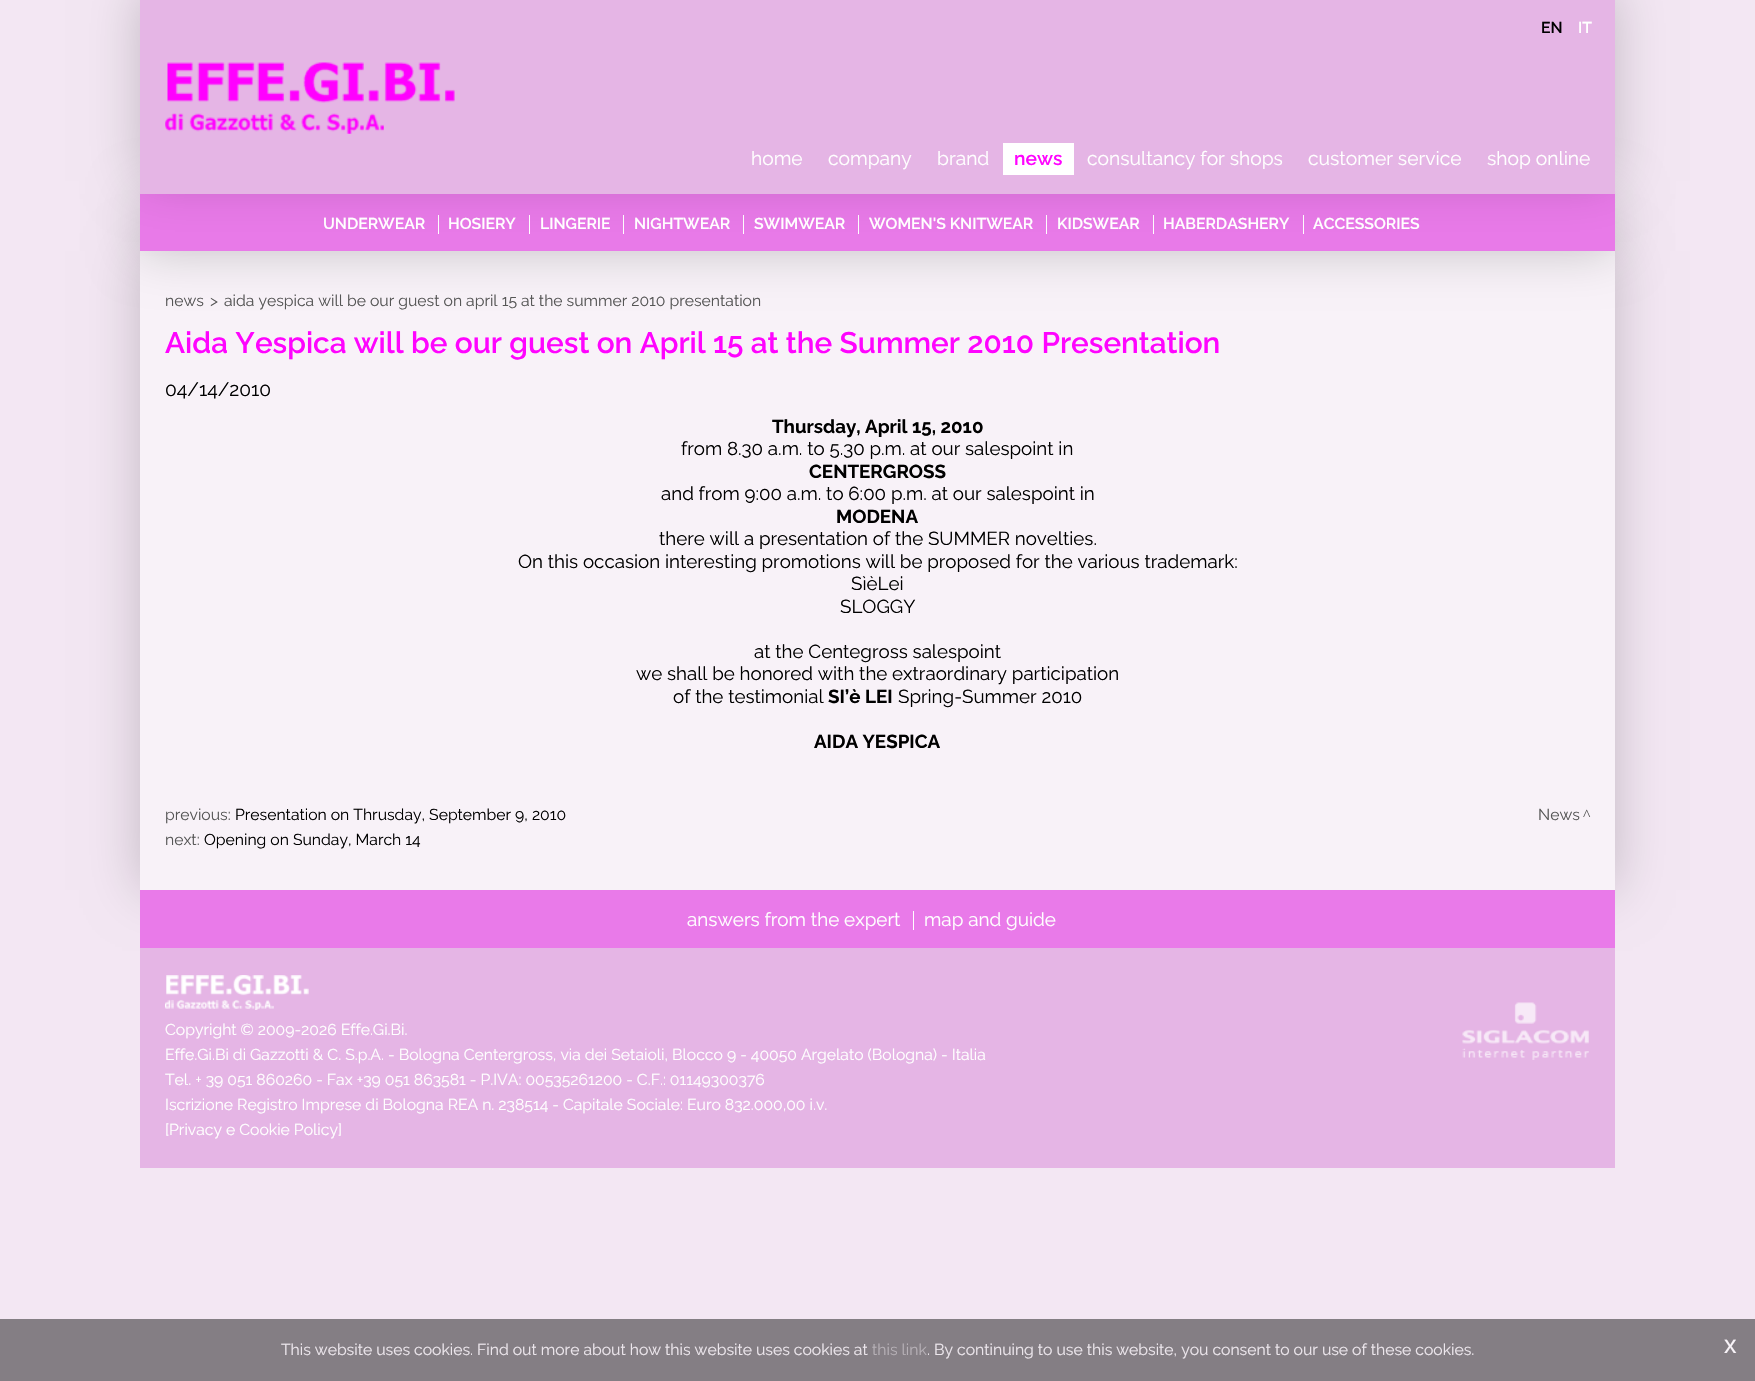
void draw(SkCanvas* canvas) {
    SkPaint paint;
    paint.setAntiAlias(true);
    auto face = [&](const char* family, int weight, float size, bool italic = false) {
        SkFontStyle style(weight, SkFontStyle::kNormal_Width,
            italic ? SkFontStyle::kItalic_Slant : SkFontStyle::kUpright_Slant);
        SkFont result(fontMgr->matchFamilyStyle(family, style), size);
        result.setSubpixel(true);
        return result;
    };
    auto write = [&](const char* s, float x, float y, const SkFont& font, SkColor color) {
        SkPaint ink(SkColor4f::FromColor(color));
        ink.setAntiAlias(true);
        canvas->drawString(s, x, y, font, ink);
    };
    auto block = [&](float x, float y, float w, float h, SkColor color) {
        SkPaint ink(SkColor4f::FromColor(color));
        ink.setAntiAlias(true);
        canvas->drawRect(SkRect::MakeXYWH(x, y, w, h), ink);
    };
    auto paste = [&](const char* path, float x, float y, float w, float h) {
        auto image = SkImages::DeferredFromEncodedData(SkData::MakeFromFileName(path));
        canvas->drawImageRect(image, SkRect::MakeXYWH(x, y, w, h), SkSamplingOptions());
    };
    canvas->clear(SkColorSetRGB(243, 231, 243));
    paint.setColor(SkColorSetARGB(51, 0, 0, 0));
    paint.setMaskFilter(SkMaskFilter::MakeBlur(kNormal_SkBlurStyle, 25));
    canvas->drawRect(SkRect::MakeXYWH(140, 251, 1475, 639), paint);
    paint.setMaskFilter(nullptr);
    block(140, 251, 1475, 639, SkColorSetRGB(248, 242, 248));
    paint.setMaskFilter(SkMaskFilter::MakeBlur(kNormal_SkBlurStyle, 25));
    canvas->drawRect(SkRect::MakeXYWH(140, 194, 1475, 57), paint);
    paint.setMaskFilter(nullptr);
    block(140, 194, 1475, 57, SkColorSetRGB(233, 122, 233));
    block(438, 215, 1, 19, SK_ColorWHITE);
    block(529, 215, 1, 19, SK_ColorWHITE);
    block(623, 215, 1, 19, SK_ColorWHITE);
    block(743, 215, 1, 19, SK_ColorWHITE);
    block(858, 215, 1, 19, SK_ColorWHITE);
    block(1046, 215, 1, 19, SK_ColorWHITE);
    block(1153, 215, 1, 19, SK_ColorWHITE);
    block(1303, 215, 1, 19, SK_ColorWHITE);
    paint.setMaskFilter(SkMaskFilter::MakeBlur(kNormal_SkBlurStyle, 25));
    canvas->drawRect(SkRect::MakeXYWH(140, -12, 1475, 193), paint);
    paint.setMaskFilter(nullptr);
    block(140, 0, 1475, 194, SkColorSetRGB(229, 181, 229));
    auto kFont1 = face("Raleway", 600, 15.75f);
    write("EN", 1541, 33, kFont1, SK_ColorBLACK);
    write("IT", 1578, 33, kFont1, SK_ColorWHITE);
    paste("pic1.png", 165, 62, 290, 72);
    auto kFont2 = face("Raleway", 400, 19.25f);
    write("home", 751, 165, kFont2, SK_ColorWHITE);
    write("company", 828, 165, kFont2, SK_ColorWHITE);
    write("brand", 937, 165, kFont2, SK_ColorWHITE);
    block(1003, 143, 71, 32, SK_ColorWHITE);
    auto kFont3 = face("Raleway", 600, 19.25f);
    write("news", 1014, 165, kFont3, SkColorSetRGB(255, 4, 255));
    write("consultancy for shops", 1087, 165, kFont2, SK_ColorWHITE);
    write("customer service", 1308, 165, kFont2, SK_ColorWHITE);
    write("shop online", 1487, 165, kFont2, SK_ColorWHITE);
    write("UNDERWEAR", 323, 229, kFont1, SK_ColorWHITE);
    write("HOSIERY", 448, 229, kFont1, SK_ColorWHITE);
    write("LINGERIE", 540, 229, kFont1, SK_ColorWHITE);
    write("NIGHTWEAR", 634, 229, kFont1, SK_ColorWHITE);
    write("SWIMWEAR", 754, 229, kFont1, SK_ColorWHITE);
    write("WOMEN'S KNITWEAR", 869, 229, kFont1, SK_ColorWHITE);
    write("KIDSWEAR", 1057, 229, kFont1, SK_ColorWHITE);
    write("HABERDASHERY", 1163, 229, kFont1, SK_ColorWHITE);
    write("ACCESSORIES", 1313, 229, kFont1, SK_ColorWHITE);
    auto kFont4 = face("Raleway", 400, 15.75f);
    write("news", 165, 306, kFont4, SkColorSetRGB(86, 86, 86));
    write(">", 210, 306, kFont4, SkColorSetRGB(86, 86, 86));
    write("aida yespica will be our guest on april 15 at the summer 2010 presentation", 224, 306, kFont4, SkColorSetRGB(86, 86, 86));
    auto kFont5 = face("Raleway", 600, 29.75f);
    write("Aida Yespica will be our guest on April 15 at the Summer 2010 Presentation", 165, 353, kFont5, SkColorSetRGB(255, 4, 255));
    write("04/14/2010", 165, 396, kFont2, SK_ColorBLACK);
    auto kFont6 = face("Raleway", 700, 18.75f);
    write("Thursday, April 15, 2010", 772, 433, kFont6, SK_ColorBLACK);
    auto kFont7 = face("Raleway", 400, 18.75f);
    write("from 8.30 a.m. to 5.30 p.m. at our salespoint in", 681, 455, kFont7, SK_ColorBLACK);
    write("CENTERGROSS", 809, 478, kFont6, SK_ColorBLACK);
    write("and from 9:00 a.m. to 6:00 p.m. at our salespoint in", 661, 500, kFont7, SK_ColorBLACK);
    write("MODENA", 836, 523, kFont6, SK_ColorBLACK);
    write("there will a presentation of the SUMMER novelties.", 659, 545, kFont7, SK_ColorBLACK);
    write("On this occasion interesting promotions will be proposed for the various trademark:", 518, 568, kFont7, SK_ColorBLACK);
    write("SìèLei", 851, 590, kFont7, SK_ColorBLACK);
    write("SLOGGY", 840, 613, kFont7, SK_ColorBLACK);
    write("at the Centegross salespoint", 754, 658, kFont7, SK_ColorBLACK);
    write("we shall be honored with the extraordinary participation", 636, 680, kFont7, SK_ColorBLACK);
    write("of the testimonial", 673, 703, kFont7, SK_ColorBLACK);
    write("SI’è LEI", 828, 703, kFont6, SK_ColorBLACK);
    write("Spring-Summer 2010", 898, 703, kFont7, SK_ColorBLACK);
    write("AIDA YESPICA", 814, 748, kFont6, SK_ColorBLACK);
    write("previous:", 165, 820, kFont4, SkColorSetRGB(86, 86, 86));
    write("Presentation on Thrusday, September 9, 2010", 235, 820, kFont4, SK_ColorBLACK);
    write("next:", 165, 845, kFont4, SkColorSetRGB(86, 86, 86));
    write("Opening on Sunday, March 14", 204, 845, kFont4, SK_ColorBLACK);
    write("News", 1538, 820, kFont4, SkColorSetRGB(86, 86, 86));
    auto kFont8 = face("Liberation Serif", 400, 15.75f);
    write("^", 1583, 820, kFont8, SkColorSetRGB(86, 86, 86));
    block(140, 890, 1475, 58, SkColorSetRGB(233, 122, 233));
    auto kFont9 = face("Raleway", 400, 18.9f);
    write("answers from the expert", 687, 926, kFont9, SK_ColorWHITE);
    block(913, 911, 1, 19, SK_ColorWHITE);
    write("map and guide", 924, 926, kFont9, SK_ColorWHITE);
    block(140, 948, 1475, 220, SkColorSetRGB(229, 181, 229));
    paste("pic2.png", 165, 975, 144, 35);
    paste("pic3.png", 1462, 1002, 127, 58);
    write("Copyright © 2009-2026 Effe.Gi.Bi.", 165, 1035, kFont4, SK_ColorWHITE);
    write("Effe.Gi.Bi di Gazzotti & C. S.p.A. - Bologna Centergross, via dei Setaioli, Blocco 9 - 40050 Argelato (Bologna) - Italia", 165, 1060, kFont4, SK_ColorWHITE);
    write("Tel. + 39 051 860260 - Fax +39 051 863581 - P.IVA: 00535261200 - C.F.: 01149300376", 165, 1085, kFont4, SK_ColorWHITE);
    write("Iscrizione Registro Imprese di Bologna REA n. 238514 - Capitale Sociale: Euro 832.000,00 i.v.", 165, 1110, kFont4, SK_ColorWHITE);
    write("[Privacy e Cookie Policy]", 165, 1135, kFont4, SK_ColorWHITE);
    block(0, 1319, 1755, 62, SkColorSetRGB(132, 126, 132));
    write("This website uses cookies. Find out more about how this website uses cookies at", 281, 1355, kFont4, SkColorSetRGB(236, 230, 236));
    write("this link", 872, 1355, kFont4, SkColorSetRGB(182, 176, 182));
    write(". By continuing to use this website, you consent to our use of these cookies.", 927, 1355, kFont4, SkColorSetRGB(236, 230, 236));
    auto kFont10 = face("Liberation Sans", 400, 25);
    write("x", 1724, 1353, kFont10, SkColorSetRGB(249, 244, 249));
}
